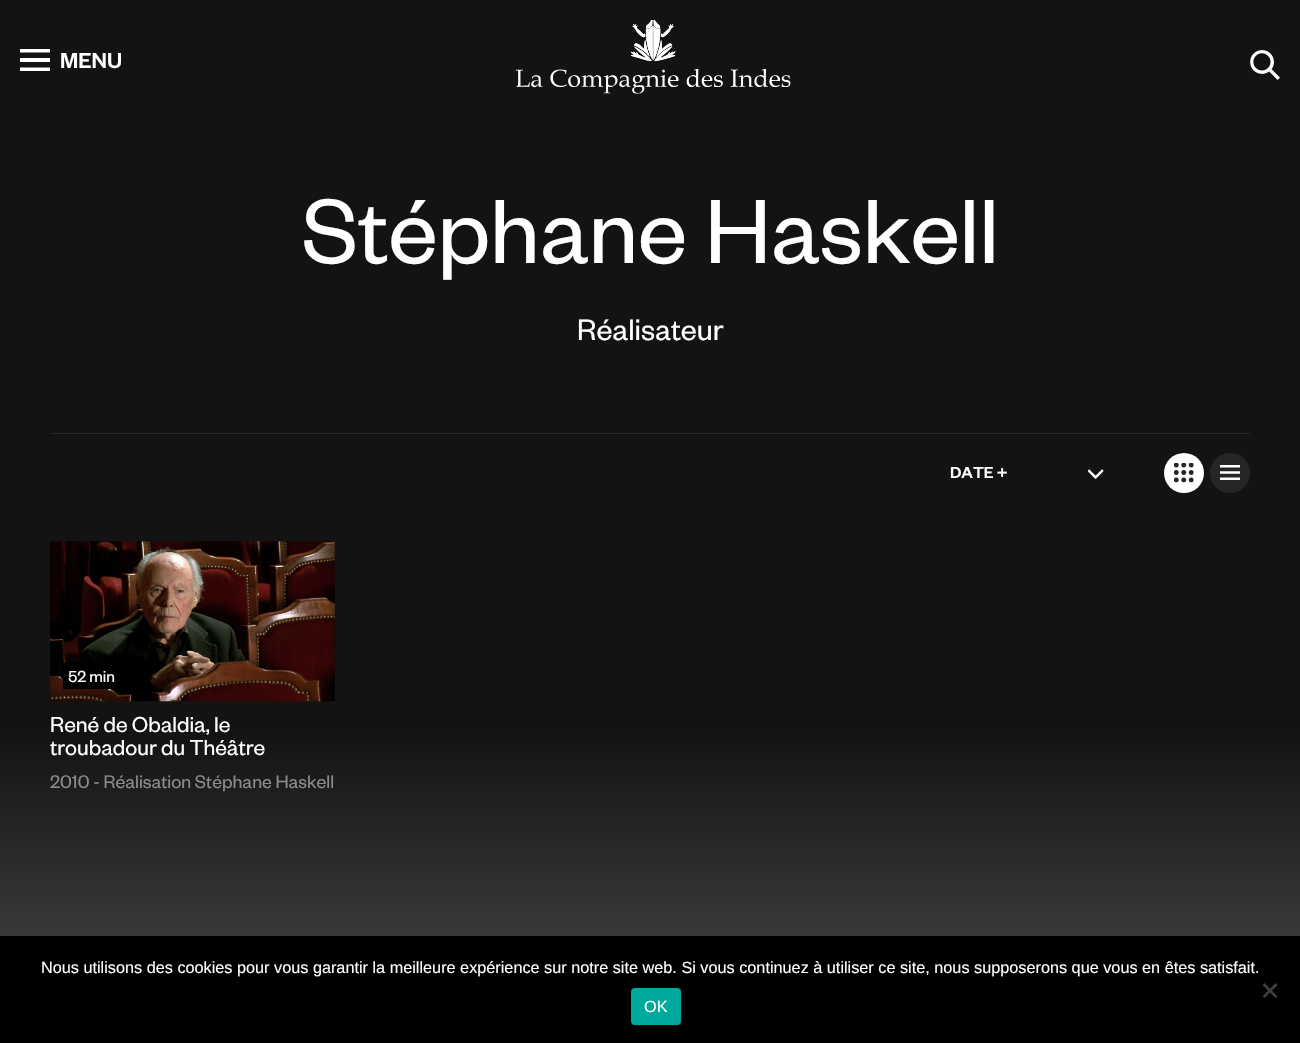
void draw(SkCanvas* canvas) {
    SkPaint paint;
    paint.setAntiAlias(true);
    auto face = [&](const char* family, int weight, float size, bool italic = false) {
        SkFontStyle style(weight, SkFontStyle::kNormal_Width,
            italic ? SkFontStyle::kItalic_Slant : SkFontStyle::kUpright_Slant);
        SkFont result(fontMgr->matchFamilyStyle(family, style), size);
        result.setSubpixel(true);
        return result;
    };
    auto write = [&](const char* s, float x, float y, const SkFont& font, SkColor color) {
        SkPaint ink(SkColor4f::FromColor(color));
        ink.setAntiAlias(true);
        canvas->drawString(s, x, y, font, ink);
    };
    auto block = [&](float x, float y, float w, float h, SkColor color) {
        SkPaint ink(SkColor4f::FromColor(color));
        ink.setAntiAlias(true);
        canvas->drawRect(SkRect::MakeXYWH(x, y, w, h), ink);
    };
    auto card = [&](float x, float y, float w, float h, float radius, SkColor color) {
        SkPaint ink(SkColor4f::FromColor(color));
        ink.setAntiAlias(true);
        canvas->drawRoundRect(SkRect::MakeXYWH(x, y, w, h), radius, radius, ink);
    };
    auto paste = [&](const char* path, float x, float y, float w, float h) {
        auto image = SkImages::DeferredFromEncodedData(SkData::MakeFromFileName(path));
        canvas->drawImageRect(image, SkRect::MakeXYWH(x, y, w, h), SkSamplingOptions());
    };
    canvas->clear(SK_ColorWHITE);
    {
        const SkColor colors[] = {SkColorSetRGB(19, 19, 19), SkColorSetRGB(77, 77, 77)};
        const float stops[] = {0.7f, 1};
        const SkPoint ends[] = {{650, 0}, {650, 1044}};
        paint.setShader(SkGradientShader::MakeLinear(ends, colors, stops, 2, SkTileMode::kClamp));
        paint.setAlpha(255);
    }
    canvas->drawRect(SkRect::MakeXYWH(0, 0, 1300, 936), paint);
    paint.setShader(nullptr);
    paint.setColor(SK_ColorWHITE);
    canvas->drawPath(SkPathBuilder(SkPathFillType::kEvenOdd).moveTo(20, 52.5f).lineTo(20, 49).lineTo(50, 49).lineTo(50, 52.5f).close().moveTo(20, 62).lineTo(20, 58).lineTo(50, 58).lineTo(50, 62).close().moveTo(20, 71).lineTo(20, 67.5f).lineTo(50, 67.5f).lineTo(50, 71).close().detach(), paint);
    auto kFont1 = face("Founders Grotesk", 500, 23.75f);
    write("MENU", 60, 68, kFont1, SK_ColorWHITE);
    paste("pic1.png", 515, 20, 276, 74);
    paste("pic2.png", 1250, 50, 30, 30);
    auto kFont2 = face("Founders Grotesk", 400, 100);
    write("Stéphane Haskell", 302, 263, kFont2, SK_ColorWHITE);
    auto kFont3 = face("Founders Grotesk", 400, 32.5f);
    write("Réalisateur", 577, 340, kFont3, SK_ColorWHITE);
    block(50, 433, 1200, 1, SkColorSetRGB(38, 38, 38));
    paste("pic3.png", 1088, 469, 16, 10);
    auto kFont4 = face("Founders Grotesk", 500, 17.5f);
    write("DATE +", 950, 478, kFont4, SK_ColorWHITE);
    canvas->drawCircle(1184, 473, 20, paint);
    paste("pic4.png", 1174, 463, 20, 20);
    paint.setColor(SkColorSetRGB(38, 38, 38));
    canvas->drawCircle(1230, 473, 20, paint);
    paste("pic5.png", 1220, 465, 20, 15);
    paste("pic6.png", 50, 541, 285, 161);
    block(63, 663, 49, 26, SK_ColorBLACK);
    auto kFont5 = face("Founders Grotesk", 400, 17.5f);
    write("52 min", 68, 682, kFont5, SK_ColorWHITE);
    auto kFont6 = face("Founders Grotesk", 400, 23.75f);
    write("René de Obaldia, le", 50, 732, kFont6, SK_ColorWHITE);
    write("troubadour du Théâtre", 50, 755, kFont6, SK_ColorWHITE);
    auto kFont7 = face("Founders Grotesk", 400, 20);
    write("2010 - Réalisation Stéphane Haskell", 50, 788, kFont7, SkColorSetRGB(138, 139, 142));
    block(0, 936, 1300, 107, SK_ColorBLACK);
    auto kFont8 = face("Liberation Sans", 400, 16.25f);
    write("Nous utilisons des cookies pour vous garantir la meilleure expérience sur notre site web. Si vous continuez à utiliser ce site, nous supposerons que vous en êtes satisfait.", 41, 973, kFont8, SK_ColorWHITE);
    paint.setColor(SkColorSetRGB(64, 64, 64));
    canvas->drawPath(SkPathBuilder().moveTo(1275.5f, 983).lineTo(1277.5f, 985).lineTo(1264.5f, 998).lineTo(1262.5f, 996.5f).close().detach(), paint);
    canvas->drawPath(SkPathBuilder().moveTo(1262.5f, 985).lineTo(1264.5f, 983).lineTo(1277.5f, 996.5f).lineTo(1275.5f, 998).close().detach(), paint);
    card(631, 988, 50, 37, 4, SkColorSetRGB(0, 169, 157));
    write("OK", 644, 1012, kFont8, SK_ColorWHITE);
}
